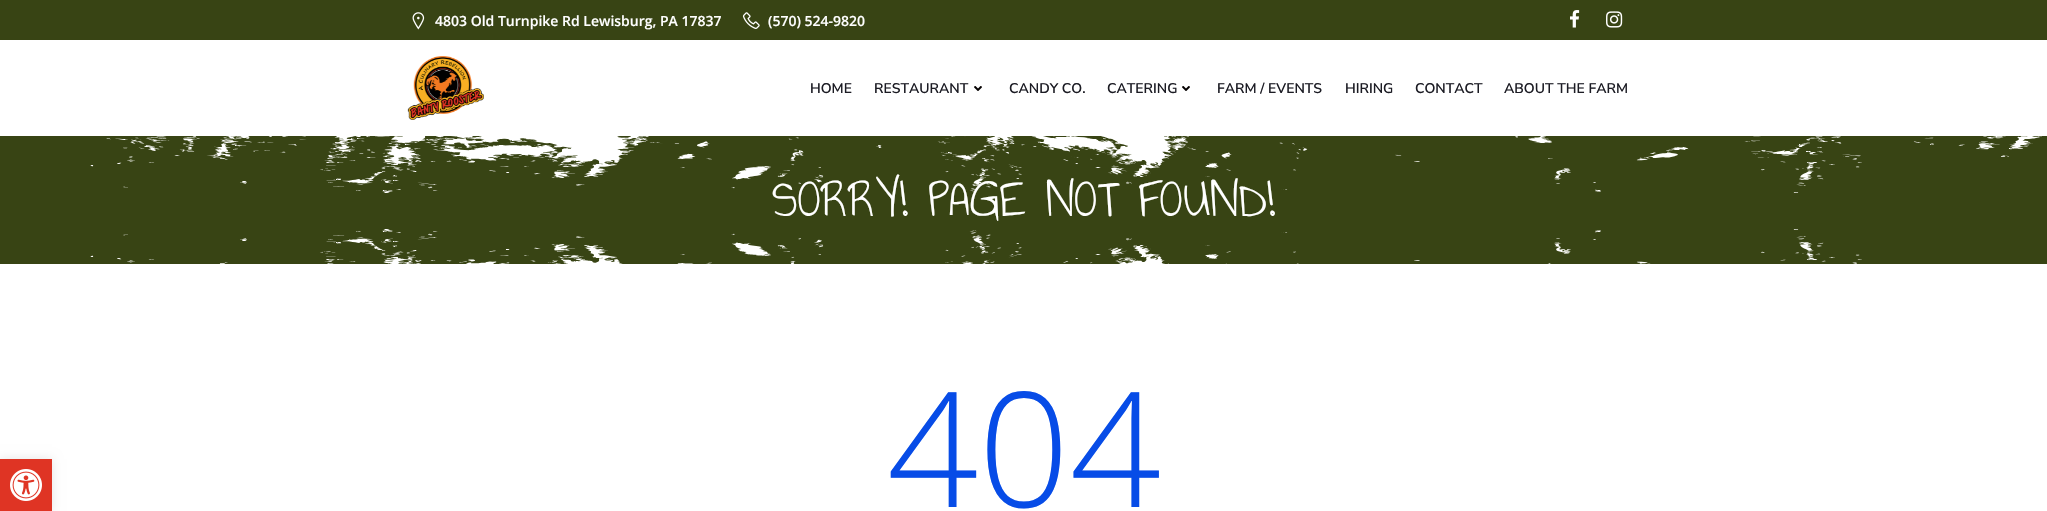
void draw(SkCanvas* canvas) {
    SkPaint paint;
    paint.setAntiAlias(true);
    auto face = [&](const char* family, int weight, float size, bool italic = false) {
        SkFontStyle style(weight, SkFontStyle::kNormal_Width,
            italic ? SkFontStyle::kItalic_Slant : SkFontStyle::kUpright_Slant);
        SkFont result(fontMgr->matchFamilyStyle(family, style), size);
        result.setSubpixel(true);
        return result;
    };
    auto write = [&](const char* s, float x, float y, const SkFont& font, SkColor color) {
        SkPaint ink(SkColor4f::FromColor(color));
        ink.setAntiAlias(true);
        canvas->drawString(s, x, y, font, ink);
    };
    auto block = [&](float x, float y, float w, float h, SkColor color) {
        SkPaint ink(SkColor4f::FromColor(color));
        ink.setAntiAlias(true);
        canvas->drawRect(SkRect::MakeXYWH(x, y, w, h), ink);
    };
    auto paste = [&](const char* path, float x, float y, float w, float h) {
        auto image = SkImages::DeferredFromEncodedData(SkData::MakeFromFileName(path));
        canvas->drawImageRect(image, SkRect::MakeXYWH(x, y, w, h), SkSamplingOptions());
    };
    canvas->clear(SK_ColorWHITE);
    paint.setColor(SkColorSetARGB(26, 0, 0, 0));
    paint.setMaskFilter(SkMaskFilter::MakeBlur(kNormal_SkBlurStyle, 5));
    canvas->drawRect(SkRect::MakeXYWH(0, 459, 52, 52), paint);
    paint.setMaskFilter(nullptr);
    block(0, 459, 52, 52, SkColorSetRGB(223, 52, 36));
    paste("pic1.png", 10, 469, 32, 32);
    block(0, 0, 2047, 40, SkColorSetRGB(56, 68, 20));
    paste("pic2.png", 412, 12, 13, 18);
    auto kFont1 = face("Open Sans", 600, 14);
    write("4803 Old Turnpike Rd Lewisburg, PA 17837", 435, 26, kFont1, SK_ColorWHITE);
    paste("pic3.png", 742, 12, 18, 17);
    write("(570) 524-9820", 768, 26, kFont1, SK_ColorWHITE);
    paste("pic4.png", 1570, 10, 10, 18);
    paste("pic5.png", 1606, 11, 17, 17);
    paste("pic6.png", 407, 56, 77, 64);
    auto kFont2 = face("Nunito Sans", 600, 14);
    write("HOME", 810, 93, kFont2, SkColorSetRGB(28, 28, 36));
    write("RESTAURANT", 874, 93, kFont2, SkColorSetRGB(28, 28, 36));
    paste("pic7.png", 974, 86, 8, 5);
    write("CANDY CO.", 1009, 93, kFont2, SkColorSetRGB(28, 28, 36));
    write("CATERING", 1107, 93, kFont2, SkColorSetRGB(28, 28, 36));
    paste("pic7.png", 1182, 86, 8, 5);
    write("FARM / EVENTS", 1217, 93, kFont2, SkColorSetRGB(28, 28, 36));
    write("HIRING", 1345, 93, kFont2, SkColorSetRGB(28, 28, 36));
    write("CONTACT", 1415, 93, kFont2, SkColorSetRGB(28, 28, 36));
    write("ABOUT THE FARM", 1504, 93, kFont2, SkColorSetRGB(28, 28, 36));
    block(0, 136, 2047, 128, SkColorSetRGB(56, 68, 20));
    paste("pic8.png", 90, 136, 1952, 57);
    auto kFont3 = face("Annie Use Your Telescope", 400, 54);
    write("SORRY! PAGE NOT FOUND!", 772, 216, kFont3, SK_ColorWHITE);
    paste("pic9.png", 90, 229, 1772, 35);
    auto kFont4 = face("Open Sans", 300, 160);
    write("404", 887, 507, kFont4, SkColorSetRGB(7, 76, 231));
}
